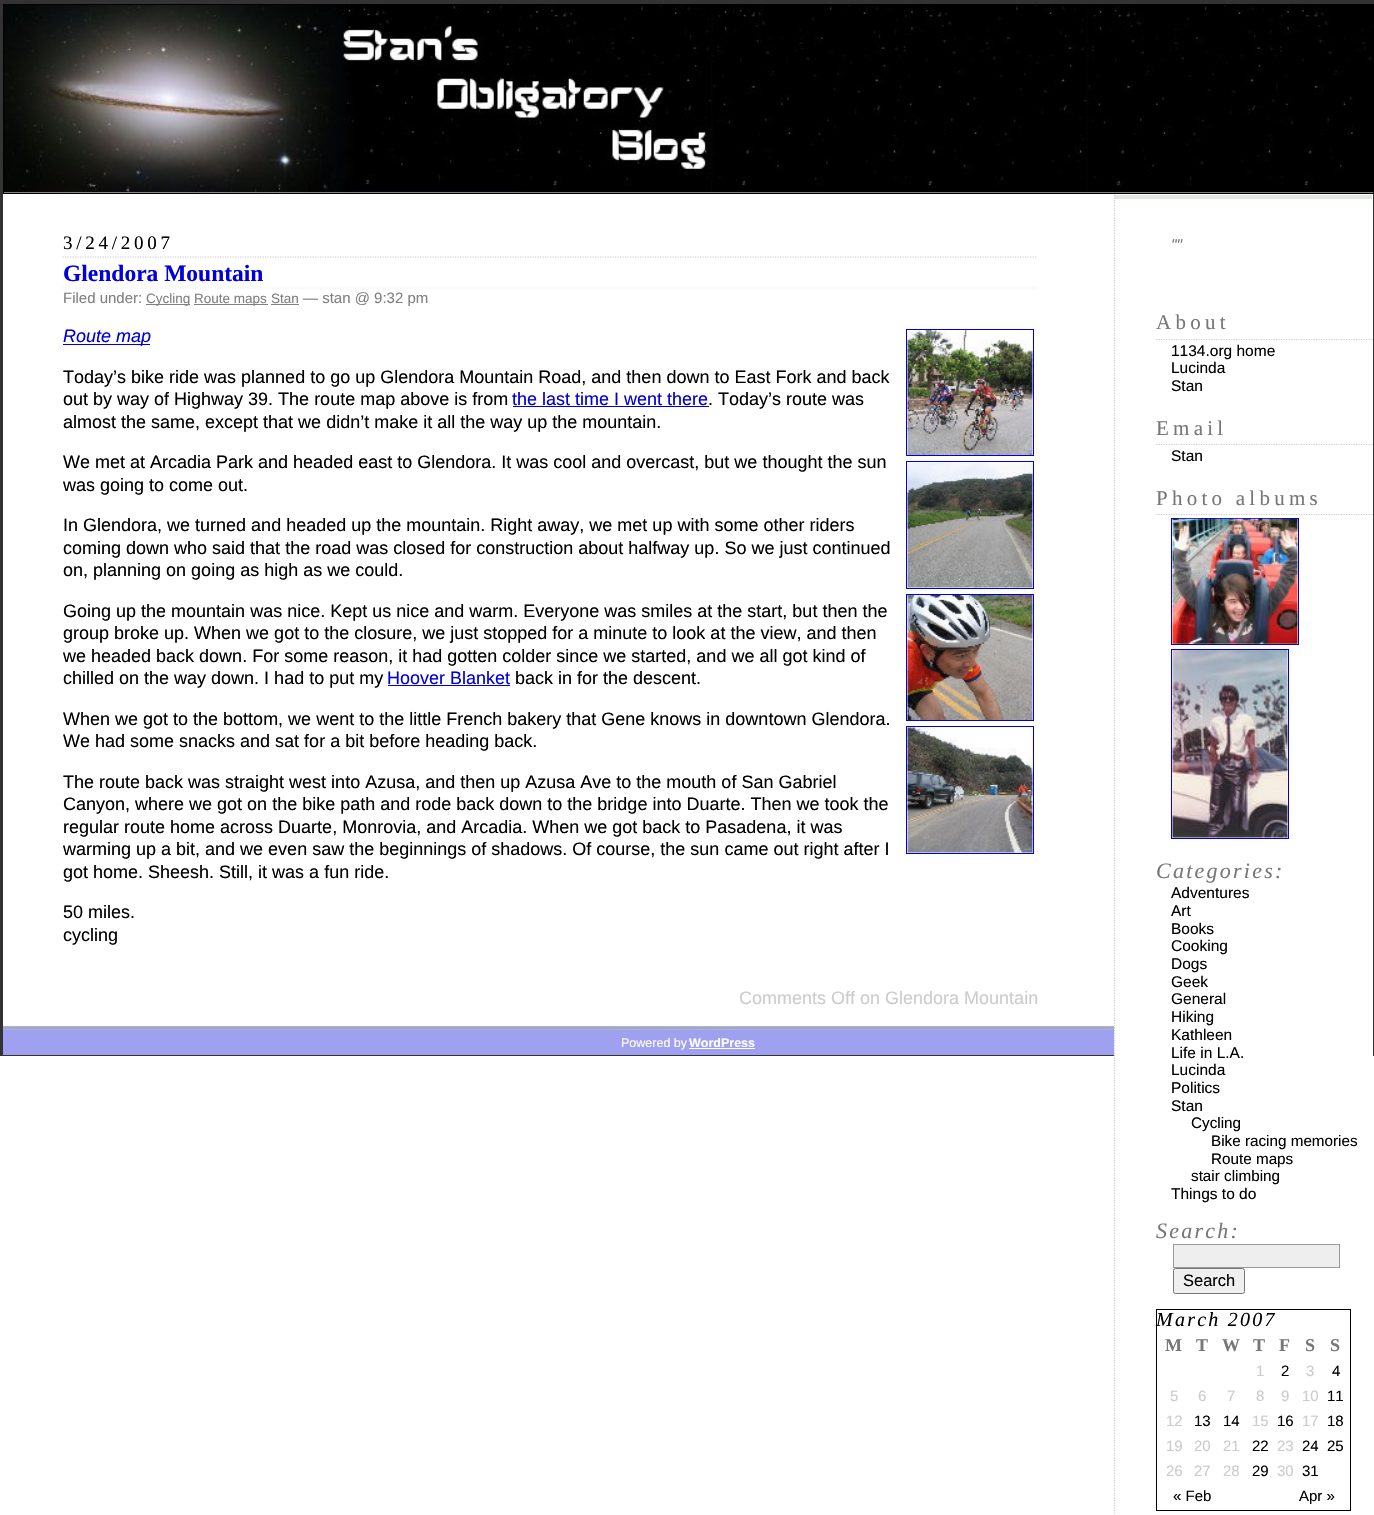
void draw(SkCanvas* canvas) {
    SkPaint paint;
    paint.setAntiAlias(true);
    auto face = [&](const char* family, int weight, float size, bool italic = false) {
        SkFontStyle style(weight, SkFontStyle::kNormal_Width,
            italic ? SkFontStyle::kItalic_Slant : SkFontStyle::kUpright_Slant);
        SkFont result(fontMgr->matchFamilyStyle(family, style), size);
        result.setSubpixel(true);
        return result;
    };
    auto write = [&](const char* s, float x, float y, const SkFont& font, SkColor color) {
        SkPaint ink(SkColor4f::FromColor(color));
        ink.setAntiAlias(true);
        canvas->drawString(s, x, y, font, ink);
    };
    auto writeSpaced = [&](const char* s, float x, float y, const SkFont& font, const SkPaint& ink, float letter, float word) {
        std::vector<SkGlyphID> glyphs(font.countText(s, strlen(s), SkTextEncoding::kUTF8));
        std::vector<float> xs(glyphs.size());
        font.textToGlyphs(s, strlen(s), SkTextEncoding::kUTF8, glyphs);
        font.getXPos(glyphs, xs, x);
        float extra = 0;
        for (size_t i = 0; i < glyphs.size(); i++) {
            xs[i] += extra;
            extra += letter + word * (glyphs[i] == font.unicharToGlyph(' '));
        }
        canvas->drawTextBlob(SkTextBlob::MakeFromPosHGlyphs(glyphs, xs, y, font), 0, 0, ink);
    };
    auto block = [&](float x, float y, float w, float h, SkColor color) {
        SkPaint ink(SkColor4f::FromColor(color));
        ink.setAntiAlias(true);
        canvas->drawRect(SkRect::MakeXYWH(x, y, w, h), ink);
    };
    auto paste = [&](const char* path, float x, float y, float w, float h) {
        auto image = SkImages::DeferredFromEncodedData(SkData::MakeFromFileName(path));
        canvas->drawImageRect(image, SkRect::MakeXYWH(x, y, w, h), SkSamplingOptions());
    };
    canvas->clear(SK_ColorWHITE);
    block(0, 0, 1374, 4, SkColorSetRGB(51, 51, 51));
    block(1373, 0, 1, 1056, SkColorSetRGB(51, 51, 51));
    block(0, 1055, 1374, 1, SkColorSetRGB(51, 51, 51));
    block(0, 0, 3, 1056, SkColorSetRGB(51, 51, 51));
    paste("pic1.png", 4, 5, 1370, 188);
    paint.setStyle(SkPaint::kStroke_Style);
    paint.setStrokeWidth(1);
    paint.setColor(SK_ColorBLACK);
    canvas->drawRect(SkRect::MakeXYWH(3.5f, 4.5f, 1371, 189), paint);
    paint.setStrokeWidth(1.2f);
    paint.setColor(SkColorSetRGB(204, 204, 204));
    paint.setPathEffect(SkDashPathEffect::Make({{1.25f, 1.25f}}, 0));
    canvas->drawPath(SkPathBuilder().moveTo(62.5f, 257).lineTo(1037.5f, 257).detach(), paint);
    paint.setPathEffect(nullptr);
    auto kFont1 = face("Liberation Serif", 400, 19);
    paint.setStyle(SkPaint::kFill_Style);
    paint.setColor(SK_ColorBLACK);
    writeSpaced("3/24/2007", 63, 249, kFont1, paint, 3.75f, 0);
    paint.setStyle(SkPaint::kStroke_Style);
    paint.setColor(SkColorSetRGB(238, 238, 238));
    paint.setPathEffect(SkDashPathEffect::Make({{1.25f, 1.25f}}, 0));
    canvas->drawPath(SkPathBuilder().moveTo(62.5f, 288).lineTo(1037.5f, 288).detach(), paint);
    paint.setPathEffect(nullptr);
    auto kFont2 = face("Liberation Serif", 700, 23.5f);
    write("Glendora Mountain", 63, 281, kFont2, SkColorSetRGB(0, 0, 221));
    auto kFont3 = face("Liberation Sans", 400, 15);
    write("Filed under:", 63, 303, kFont3, SkColorSetRGB(128, 128, 128));
    block(146, 304, 44, 1, SkColorSetRGB(128, 128, 128));
    auto kFont4 = face("Liberation Sans", 400, 13.5f);
    write("Cycling", 146, 303, kFont4, SkColorSetRGB(128, 128, 128));
    block(194, 304, 74, 1, SkColorSetRGB(128, 128, 128));
    write("Route maps", 194, 303, kFont4, SkColorSetRGB(128, 128, 128));
    write("Stan", 271, 303, kFont4, SkColorSetRGB(128, 128, 128));
    block(271, 304, 28, 1, SkColorSetRGB(128, 128, 128));
    write("— stan @ 9:32 pm", 303, 303, kFont3, SkColorSetRGB(128, 128, 128));
    block(63, 344, 87, 1, SkColorSetRGB(0, 0, 221));
    auto kFont5 = face("Liberation Sans", 400, 18, true);
    write("Route map", 63, 342, kFont5, SkColorSetRGB(0, 0, 221));
    paint.setStrokeWidth(1);
    paint.setColor(SkColorSetRGB(0, 0, 221));
    canvas->drawRect(SkRect::MakeXYWH(906.5f, 329.5f, 127, 126), paint);
    paste("pic2.png", 907, 330, 126, 125);
    canvas->drawRect(SkRect::MakeXYWH(906.5f, 461.5f, 127, 127), paint);
    paste("pic3.png", 907, 462, 126, 126);
    canvas->drawRect(SkRect::MakeXYWH(906.5f, 594.5f, 127, 126), paint);
    paste("pic4.png", 907, 595, 126, 125);
    canvas->drawRect(SkRect::MakeXYWH(906.5f, 726.5f, 127, 127), paint);
    paste("pic5.png", 907, 727, 126, 126);
    auto kFont6 = face("Liberation Sans", 400, 18);
    write("Today’s bike ride was planned to go up Glendora Mountain Road, and then down to East Fork and back", 63, 383, kFont6, SK_ColorBLACK);
    write("out by way of Highway 39. The route map above is from", 63, 405, kFont6, SK_ColorBLACK);
    write("the last time I went there", 512, 405, kFont6, SkColorSetRGB(0, 0, 221));
    block(513, 406, 196, 1, SkColorSetRGB(0, 0, 221));
    write(". Today’s route was", 708, 405, kFont6, SK_ColorBLACK);
    write("almost the same, except that we didn’t make it all the way up the mountain.", 63, 428, kFont6, SK_ColorBLACK);
    write("We met at Arcadia Park and headed east to Glendora. It was cool and overcast, but we thought the sun", 63, 468, kFont6, SK_ColorBLACK);
    write("was going to come out.", 63, 491, kFont6, SK_ColorBLACK);
    write("In Glendora, we turned and headed up the mountain. Right away, we met up with some other riders", 63, 531, kFont6, SK_ColorBLACK);
    write("coming down who said that the road was closed for construction about halfway up. So we just continued", 63, 554, kFont6, SK_ColorBLACK);
    write("on, planning on going as high as we could.", 63, 576, kFont6, SK_ColorBLACK);
    write("Going up the mountain was nice. Kept us nice and warm. Everyone was smiles at the start, but then the", 63, 617, kFont6, SK_ColorBLACK);
    write("group broke up. When we got to the closure, we just stopped for a minute to look at the view, and then", 63, 639, kFont6, SK_ColorBLACK);
    write("we headed back down. For some reason, it had gotten colder since we started, and we all got kind of", 63, 662, kFont6, SK_ColorBLACK);
    write("chilled on the way down. I had to put my", 63, 684, kFont6, SK_ColorBLACK);
    write("Hoover Blanket", 387, 684, kFont6, SkColorSetRGB(0, 0, 221));
    block(388, 685, 122, 1, SkColorSetRGB(0, 0, 221));
    write("back in for the descent.", 515, 684, kFont6, SK_ColorBLACK);
    write("When we got to the bottom, we went to the little French bakery that Gene knows in downtown Glendora.", 63, 725, kFont6, SK_ColorBLACK);
    write("We had some snacks and sat for a bit before heading back.", 63, 747, kFont6, SK_ColorBLACK);
    write("The route back was straight west into Azusa, and then up Azusa Ave to the mouth of San Gabriel", 63, 788, kFont6, SK_ColorBLACK);
    write("Canyon, where we got on the bike path and rode back down to the bridge into Duarte. Then we took the", 63, 810, kFont6, SK_ColorBLACK);
    write("regular route home across Duarte, Monrovia, and Arcadia. When we got back to Pasadena, it was", 63, 833, kFont6, SK_ColorBLACK);
    write("warming up a bit, and we even saw the beginnings of shadows. Of course, the sun came out right after I", 63, 855, kFont6, SK_ColorBLACK);
    write("got home. Sheesh. Still, it was a fun ride.", 63, 878, kFont6, SK_ColorBLACK);
    write("50 miles.", 63, 918, kFont6, SK_ColorBLACK);
    write("cycling", 63, 941, kFont6, SK_ColorBLACK);
    write("Comments Off on Glendora Mountain", 739, 1004, kFont6, SkColorSetRGB(204, 204, 204));
    block(1114, 1055, 259, 1, SK_ColorWHITE);
    paint.setStyle(SkPaint::kFill_Style);
    paint.setColor(SkColorSetRGB(224, 230, 224));
    canvas->drawPath(SkPathBuilder().moveTo(1114, 195).lineTo(1372, 195).lineTo(1372, 199).lineTo(1115, 199).close().detach(), paint);
    block(3, 1027, 1111, 28, SkColorSetRGB(160, 160, 240));
    block(3, 1026, 1111, 1, SkColorSetRGB(170, 187, 170));
    block(3, 1029, 1111, 1, SkColorSetRGB(170, 187, 170));
    paint.setStyle(SkPaint::kStroke_Style);
    paint.setStrokeWidth(1.2f);
    paint.setColor(SkColorSetRGB(204, 204, 204));
    paint.setPathEffect(SkDashPathEffect::Make({{1.25f, 1.25f}}, 0));
    canvas->drawPath(SkPathBuilder().moveTo(1114.5f, 195).lineTo(1114.5f, 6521).detach(), paint);
    paint.setPathEffect(nullptr);
    auto kFont7 = face("Liberation Sans", 400, 15.5f, true);
    write("\"\"", 1171, 250, kFont7, SkColorSetRGB(119, 119, 119));
    paint.setPathEffect(SkDashPathEffect::Make({{1.25f, 1.25f}}, 0));
    canvas->drawPath(SkPathBuilder().moveTo(1156, 339.5f).lineTo(1372.5f, 339.5f).detach(), paint);
    paint.setPathEffect(nullptr);
    auto kFont8 = face("Liberation Serif", 400, 21);
    paint.setStyle(SkPaint::kFill_Style);
    paint.setColor(SkColorSetRGB(119, 119, 119));
    writeSpaced("About", 1156, 329, kFont8, paint, 4.25f, 0);
    auto kFont9 = face("Liberation Sans", 400, 15.5f);
    write("1134.org home", 1171, 356, kFont9, SK_ColorBLACK);
    write("Lucinda", 1171, 373, kFont9, SK_ColorBLACK);
    write("Stan", 1171, 391, kFont9, SK_ColorBLACK);
    paint.setStyle(SkPaint::kStroke_Style);
    paint.setColor(SkColorSetRGB(204, 204, 204));
    paint.setPathEffect(SkDashPathEffect::Make({{1.25f, 1.25f}}, 0));
    canvas->drawPath(SkPathBuilder().moveTo(1156, 444.5f).lineTo(1372.5f, 444.5f).detach(), paint);
    paint.setPathEffect(nullptr);
    paint.setStyle(SkPaint::kFill_Style);
    paint.setColor(SkColorSetRGB(119, 119, 119));
    writeSpaced("Email", 1156, 435, kFont8, paint, 4.25f, 0);
    write("Stan", 1171, 461, kFont9, SK_ColorBLACK);
    paint.setStyle(SkPaint::kStroke_Style);
    paint.setColor(SkColorSetRGB(204, 204, 204));
    paint.setPathEffect(SkDashPathEffect::Make({{1.25f, 1.25f}}, 0));
    canvas->drawPath(SkPathBuilder().moveTo(1156, 514.5f).lineTo(1372.5f, 514.5f).detach(), paint);
    paint.setPathEffect(nullptr);
    paint.setStyle(SkPaint::kFill_Style);
    paint.setColor(SkColorSetRGB(119, 119, 119));
    writeSpaced("Photo albums", 1156, 505, kFont8, paint, 4.25f, 0);
    paint.setStyle(SkPaint::kStroke_Style);
    paint.setStrokeWidth(1);
    paint.setColor(SkColorSetRGB(0, 0, 221));
    canvas->drawRect(SkRect::MakeXYWH(1171.5f, 518.5f, 127, 126), paint);
    paste("pic6.png", 1172, 518, 126, 126);
    canvas->drawRect(SkRect::MakeXYWH(1171.5f, 649.5f, 117, 189), paint);
    paste("pic7.png", 1172, 650, 116, 188);
    auto kFont10 = face("Liberation Serif", 400, 22, true);
    paint.setStyle(SkPaint::kFill_Style);
    paint.setColor(SkColorSetRGB(119, 119, 119));
    writeSpaced("Categories:", 1156, 878, kFont10, paint, 2.25f, 0);
    write("Adventures", 1171, 898, kFont9, SK_ColorBLACK);
    write("Art", 1171, 916, kFont9, SK_ColorBLACK);
    write("Books", 1171, 934, kFont9, SK_ColorBLACK);
    write("Cooking", 1171, 951, kFont9, SK_ColorBLACK);
    write("Dogs", 1171, 969, kFont9, SK_ColorBLACK);
    write("Geek", 1171, 987, kFont9, SK_ColorBLACK);
    write("General", 1171, 1004, kFont9, SK_ColorBLACK);
    write("Hiking", 1171, 1022, kFont9, SK_ColorBLACK);
    write("Kathleen", 1171, 1040, kFont9, SK_ColorBLACK);
    write("Life in L.A.", 1171, 1058, kFont9, SK_ColorBLACK);
    write("Lucinda", 1171, 1075, kFont9, SK_ColorBLACK);
    write("Politics", 1171, 1093, kFont9, SK_ColorBLACK);
    write("Stan", 1171, 1111, kFont9, SK_ColorBLACK);
    auto kFont11 = face("Liberation Sans", 400, 15.25f);
    write("Cycling", 1191, 1128, kFont11, SK_ColorBLACK);
    write("Bike racing memories", 1211, 1146, kFont11, SK_ColorBLACK);
    write("Route maps", 1211, 1164, kFont11, SK_ColorBLACK);
    write("stair climbing", 1191, 1181, kFont11, SK_ColorBLACK);
    write("Things to do", 1171, 1199, kFont9, SK_ColorBLACK);
    writeSpaced("Search:", 1156, 1238, kFont10, paint, 2.25f, 0);
    paint.setColor(SkColorSetRGB(238, 238, 238));
    canvas->drawRect(SkRect::MakeXYWH(1173.5f, 1244.5f, 166, 23), paint);
    paint.setStyle(SkPaint::kStroke_Style);
    paint.setColor(SkColorSetRGB(153, 153, 153));
    canvas->drawRect(SkRect::MakeXYWH(1173.5f, 1244.5f, 166, 23), paint);
    paint.setStyle(SkPaint::kFill_Style);
    paint.setColor(SkColorSetRGB(239, 239, 239));
    canvas->drawRoundRect(SkRect::MakeXYWH(1173.5f, 1268.5f, 71, 25), 2, 2, paint);
    paint.setStyle(SkPaint::kStroke_Style);
    paint.setColor(SkColorSetRGB(118, 118, 118));
    canvas->drawRoundRect(SkRect::MakeXYWH(1173.5f, 1268.5f, 71, 25), 2, 2, paint);
    auto kFont12 = face("Liberation Sans", 400, 16.5f);
    write("Search", 1183, 1286, kFont12, SK_ColorBLACK);
    paint.setColor(SK_ColorBLACK);
    canvas->drawRect(SkRect::MakeXYWH(1156.5f, 1309.5f, 194, 201), paint);
    auto kFont13 = face("Liberation Serif", 400, 20, true);
    paint.setStyle(SkPaint::kFill_Style);
    writeSpaced("March 2007", 1156, 1326, kFont13, paint, 2.25f, 0);
    auto kFont14 = face("Liberation Serif", 700, 18);
    paint.setColor(SkColorSetRGB(119, 119, 119));
    writeSpaced("M", 1165, 1351, kFont14, paint, 2.25f, 0);
    writeSpaced("T", 1196, 1351, kFont14, paint, 2.25f, 0);
    writeSpaced("W", 1222, 1351, kFont14, paint, 2.25f, 0);
    writeSpaced("T", 1253, 1351, kFont14, paint, 2.25f, 0);
    writeSpaced("F", 1279, 1351, kFont14, paint, 2.25f, 0);
    writeSpaced("S", 1305, 1351, kFont14, paint, 2.25f, 0);
    writeSpaced("S", 1330, 1351, kFont14, paint, 2.25f, 0);
    write("1", 1256, 1376, kFont3, SkColorSetRGB(204, 204, 204));
    write("2", 1281, 1376, kFont3, SK_ColorBLACK);
    write("3", 1306, 1376, kFont3, SkColorSetRGB(204, 204, 204));
    write("4", 1332, 1376, kFont3, SK_ColorBLACK);
    write("5", 1170, 1401, kFont3, SkColorSetRGB(204, 204, 204));
    write("6", 1198, 1401, kFont3, SkColorSetRGB(204, 204, 204));
    write("7", 1227, 1401, kFont3, SkColorSetRGB(204, 204, 204));
    write("8", 1256, 1401, kFont3, SkColorSetRGB(204, 204, 204));
    write("9", 1281, 1401, kFont3, SkColorSetRGB(204, 204, 204));
    write("10", 1302, 1401, kFont3, SkColorSetRGB(204, 204, 204));
    write("11", 1327, 1401, kFont3, SK_ColorBLACK);
    write("12", 1166, 1426, kFont3, SkColorSetRGB(204, 204, 204));
    write("13", 1194, 1426, kFont3, SK_ColorBLACK);
    write("14", 1223, 1426, kFont3, SK_ColorBLACK);
    write("15", 1252, 1426, kFont3, SkColorSetRGB(204, 204, 204));
    write("16", 1277, 1426, kFont3, SK_ColorBLACK);
    write("17", 1302, 1426, kFont3, SkColorSetRGB(204, 204, 204));
    write("18", 1327, 1426, kFont3, SK_ColorBLACK);
    write("19", 1166, 1451, kFont3, SkColorSetRGB(204, 204, 204));
    write("20", 1194, 1451, kFont3, SkColorSetRGB(204, 204, 204));
    write("21", 1223, 1451, kFont3, SkColorSetRGB(204, 204, 204));
    write("22", 1252, 1451, kFont3, SK_ColorBLACK);
    write("23", 1277, 1451, kFont3, SkColorSetRGB(204, 204, 204));
    write("24", 1302, 1451, kFont3, SK_ColorBLACK);
    write("25", 1327, 1451, kFont3, SK_ColorBLACK);
    write("26", 1166, 1476, kFont3, SkColorSetRGB(204, 204, 204));
    write("27", 1194, 1476, kFont3, SkColorSetRGB(204, 204, 204));
    write("28", 1223, 1476, kFont3, SkColorSetRGB(204, 204, 204));
    write("29", 1252, 1476, kFont3, SK_ColorBLACK);
    write("30", 1277, 1476, kFont3, SkColorSetRGB(204, 204, 204));
    write("31", 1302, 1476, kFont3, SK_ColorBLACK);
    write("« Feb", 1173, 1501, kFont3, SK_ColorBLACK);
    write("Apr »", 1299, 1501, kFont3, SK_ColorBLACK);
    auto kFont15 = face("Liberation Sans", 400, 12.5f);
    write("Powered by", 621, 1047, kFont15, SK_ColorWHITE);
    auto kFont16 = face("Liberation Sans", 700, 12.5f);
    write("WordPress", 689, 1047, kFont16, SK_ColorWHITE);
    block(689, 1048, 66, 1, SK_ColorWHITE);
}
